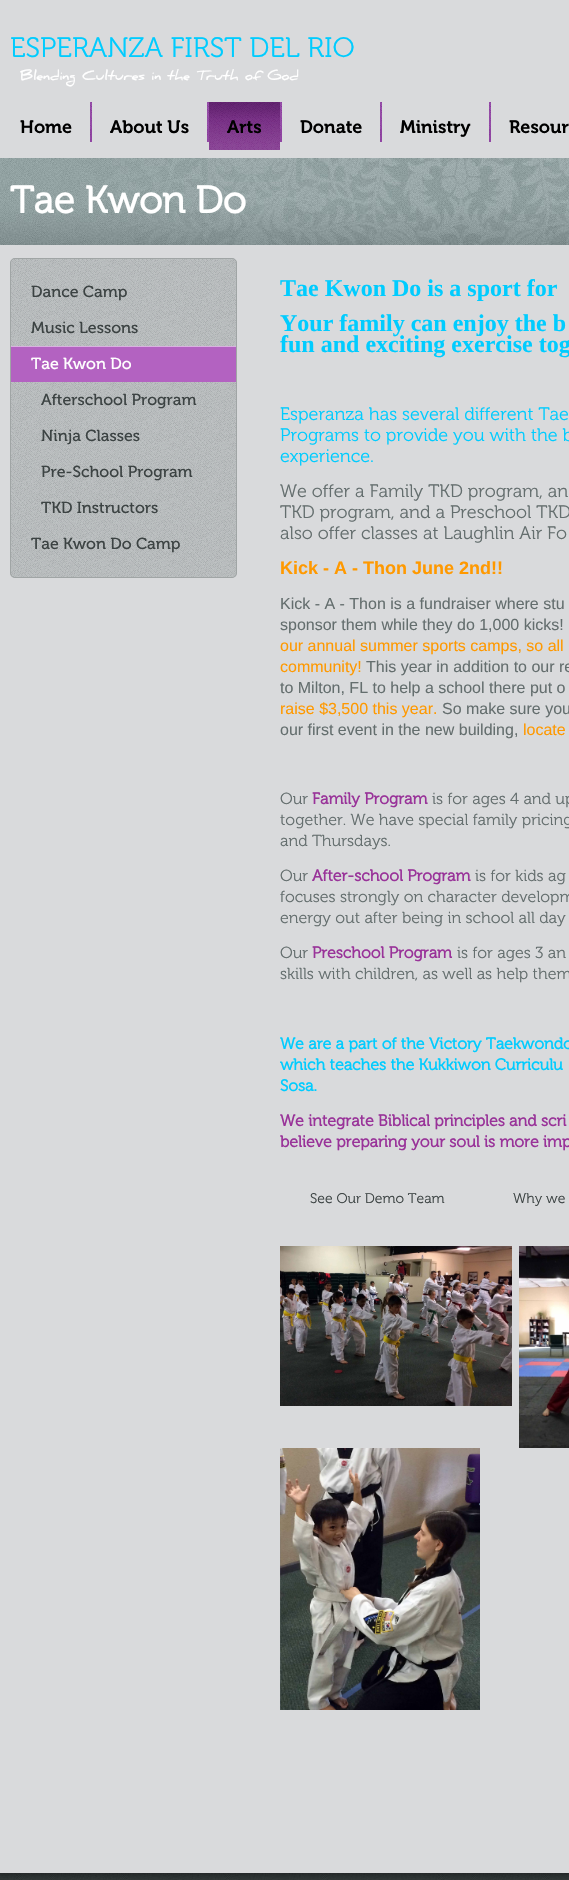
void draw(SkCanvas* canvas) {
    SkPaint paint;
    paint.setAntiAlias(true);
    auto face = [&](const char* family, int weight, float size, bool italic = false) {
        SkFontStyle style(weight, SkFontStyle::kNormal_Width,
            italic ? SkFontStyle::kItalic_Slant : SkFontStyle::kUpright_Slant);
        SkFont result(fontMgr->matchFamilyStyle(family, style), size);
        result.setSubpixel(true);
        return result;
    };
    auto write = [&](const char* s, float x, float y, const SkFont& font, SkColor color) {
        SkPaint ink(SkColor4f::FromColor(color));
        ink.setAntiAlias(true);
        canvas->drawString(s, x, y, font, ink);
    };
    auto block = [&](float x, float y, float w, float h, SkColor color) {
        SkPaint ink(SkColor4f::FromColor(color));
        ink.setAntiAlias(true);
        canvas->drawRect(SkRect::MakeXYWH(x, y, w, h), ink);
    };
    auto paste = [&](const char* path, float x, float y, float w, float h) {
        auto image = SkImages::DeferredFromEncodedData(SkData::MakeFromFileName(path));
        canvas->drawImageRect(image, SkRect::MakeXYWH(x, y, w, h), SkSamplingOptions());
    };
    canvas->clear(SkColorSetRGB(217, 218, 220));
    auto kFont1 = face("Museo", 300, 28);
    write("ESPERANZA FIRST DEL RIO", 10, 57, kFont1, SkColorSetRGB(0, 204, 255));
    auto kFont2 = face("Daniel", 700, 12.8f);
    write("Blending Cultures in the Truth of God", 20, 80, kFont2, SK_ColorWHITE);
    auto kFont3 = face("Museo", 600, 18);
    write("Home", 20, 133, kFont3, SK_ColorBLACK);
    paste("pic1.png", 90, 102, 2, 40);
    write("About Us", 110, 133, kFont3, SK_ColorBLACK);
    paste("pic1.png", 207, 102, 2, 40);
    paste("pic2.png", 209, 102, 71, 48);
    write("Arts", 227, 133, kFont3, SK_ColorBLACK);
    paste("pic1.png", 280, 102, 2, 40);
    write("Donate", 300, 133, kFont3, SK_ColorBLACK);
    paste("pic1.png", 380, 102, 2, 40);
    write("Ministry", 400, 133, kFont3, SK_ColorBLACK);
    paste("pic1.png", 489, 102, 2, 40);
    write("Resour", 509, 133, kFont3, SK_ColorBLACK);
    paste("pic3.png", 0, 158, 569, 87);
    auto kFont4 = face("Museo", 700, 38);
    write("Tae Kwon Do", 10, 213, kFont4, SK_ColorWHITE);
    auto kFont5 = face("Liberation Serif", 700, 24);
    write("Tae Kwon Do is a sport for", 280, 296, kFont5, SkColorSetRGB(0, 204, 255));
    write("Your family can enjoy the b", 280, 331, kFont5, SkColorSetRGB(0, 204, 255));
    write("fun and exciting exercise tog", 280, 352, kFont5, SkColorSetRGB(0, 204, 255));
    auto kFont6 = face("Museo", 300, 18);
    write("Esperanza has several different Tae", 280, 420, kFont6, SkColorSetRGB(0, 204, 255));
    write("Programs to provide you with the b", 280, 441, kFont6, SkColorSetRGB(0, 204, 255));
    write("experience.", 280, 462, kFont6, SkColorSetRGB(0, 204, 255));
    write("We offer a Family TKD program, an", 280, 497, kFont6, SkColorSetRGB(100, 110, 110));
    write("TKD program, and a Preschool TKD", 280, 518, kFont6, SkColorSetRGB(100, 110, 110));
    write("also offer classes at Laughlin Air Fo", 280, 539, kFont6, SkColorSetRGB(100, 110, 110));
    auto kFont7 = face("Liberation Sans", 700, 18);
    write("Kick - A - Thon June 2nd!!", 280, 574, kFont7, SkColorSetRGB(255, 153, 0));
    auto kFont8 = face("Liberation Sans", 400, 16);
    write("Kick - A - Thon is a fundraiser where stu", 280, 609, kFont8, SkColorSetRGB(100, 110, 110));
    write("sponsor them while they do 1,000 kicks!", 280, 630, kFont8, SkColorSetRGB(100, 110, 110));
    write("our annual summer sports camps, so all", 280, 651, kFont8, SkColorSetRGB(255, 153, 0));
    write("community!", 280, 672, kFont8, SkColorSetRGB(255, 153, 0));
    write("This year in addition to our re", 366, 672, kFont8, SkColorSetRGB(100, 110, 110));
    write("to Milton, FL to help a school there put o", 280, 693, kFont8, SkColorSetRGB(100, 110, 110));
    write("raise $3,500 this year.", 280, 714, kFont8, SkColorSetRGB(255, 153, 0));
    write("So make sure you", 442, 714, kFont8, SkColorSetRGB(100, 110, 110));
    write("our first event in the new building,", 280, 735, kFont8, SkColorSetRGB(100, 110, 110));
    write("locate", 523, 735, kFont8, SkColorSetRGB(255, 153, 0));
    auto kFont9 = face("Museo", 300, 16);
    write("Our", 280, 804, kFont9, SkColorSetRGB(100, 110, 110));
    auto kFont10 = face("Museo", 700, 16);
    write("Family Program", 312, 804, kFont10, SkColorSetRGB(153, 51, 153));
    write("is for ages 4 and up", 432, 804, kFont9, SkColorSetRGB(100, 110, 110));
    write("together. We have special family pricing", 280, 825, kFont9, SkColorSetRGB(100, 110, 110));
    write("and Thursdays.", 280, 846, kFont9, SkColorSetRGB(100, 110, 110));
    write("Our", 280, 881, kFont9, SkColorSetRGB(100, 110, 110));
    write("After-school Program", 312, 881, kFont10, SkColorSetRGB(153, 51, 153));
    write("is for kids ag", 475, 881, kFont9, SkColorSetRGB(100, 110, 110));
    write("focuses strongly on character developm", 280, 902, kFont9, SkColorSetRGB(100, 110, 110));
    write("energy out after being in school all day", 280, 923, kFont9, SkColorSetRGB(100, 110, 110));
    write("Our", 280, 958, kFont9, SkColorSetRGB(100, 110, 110));
    write("Preschool Program", 312, 958, kFont10, SkColorSetRGB(153, 51, 153));
    write("is for ages 3 an", 457, 958, kFont9, SkColorSetRGB(100, 110, 110));
    write("skills with children, as well as help them", 280, 979, kFont9, SkColorSetRGB(100, 110, 110));
    write("We are a part of the Victory Taekwondo", 280, 1049, kFont10, SkColorSetRGB(0, 204, 255));
    write("which teaches the Kukkiwon Curriculu", 280, 1070, kFont10, SkColorSetRGB(0, 204, 255));
    write("Sosa.", 280, 1091, kFont10, SkColorSetRGB(0, 204, 255));
    write("We integrate Biblical principles and scri", 280, 1126, kFont10, SkColorSetRGB(153, 51, 153));
    write("believe preparing your soul is more imp", 280, 1147, kFont10, SkColorSetRGB(153, 51, 153));
    auto kFont11 = face("Museo", 300, 14);
    write("See Our Demo Team", 310, 1203, kFont11, SkColorSetRGB(60, 67, 67));
    write("Why we", 513, 1203, kFont11, SkColorSetRGB(60, 67, 67));
    paste("pic4.png", 280, 1246, 232, 160);
    paste("pic5.png", 519, 1246, 50, 202);
    paste("pic6.png", 280, 1448, 200, 262);
    paste("pic7.png", 10, 258, 227, 320);
    paint.setStyle(SkPaint::kStroke_Style);
    paint.setStrokeWidth(1);
    paint.setColor(SkColorSetRGB(160, 165, 165));
    canvas->drawRoundRect(SkRect::MakeXYWH(10.5f, 258.5f, 226, 319), 4.5f, 4.5f, paint);
    auto kFont12 = face("Museo", 400, 16);
    write("Dance Camp", 31, 297, kFont12, SkColorSetRGB(60, 67, 67));
    write("Music Lessons", 31, 333, kFont12, SkColorSetRGB(60, 67, 67));
    block(11, 347, 225, 35, SkColorSetRGB(179, 98, 193));
    block(11, 346, 225, 1, SkColorSetRGB(217, 177, 224));
    write("Tae Kwon Do", 31, 369, kFont12, SK_ColorWHITE);
    paste("pic8.png", 11, 382, 225, 144);
    write("Afterschool Program", 41, 405, kFont12, SkColorSetRGB(60, 67, 67));
    write("Ninja Classes", 41, 441, kFont12, SkColorSetRGB(60, 67, 67));
    write("Pre-School Program", 41, 477, kFont12, SkColorSetRGB(60, 67, 67));
    write("TKD Instructors", 41, 513, kFont12, SkColorSetRGB(60, 67, 67));
    write("Tae Kwon Do Camp", 31, 549, kFont12, SkColorSetRGB(60, 67, 67));
    paste("pic9.png", 0, 1873, 569, 7);
}
